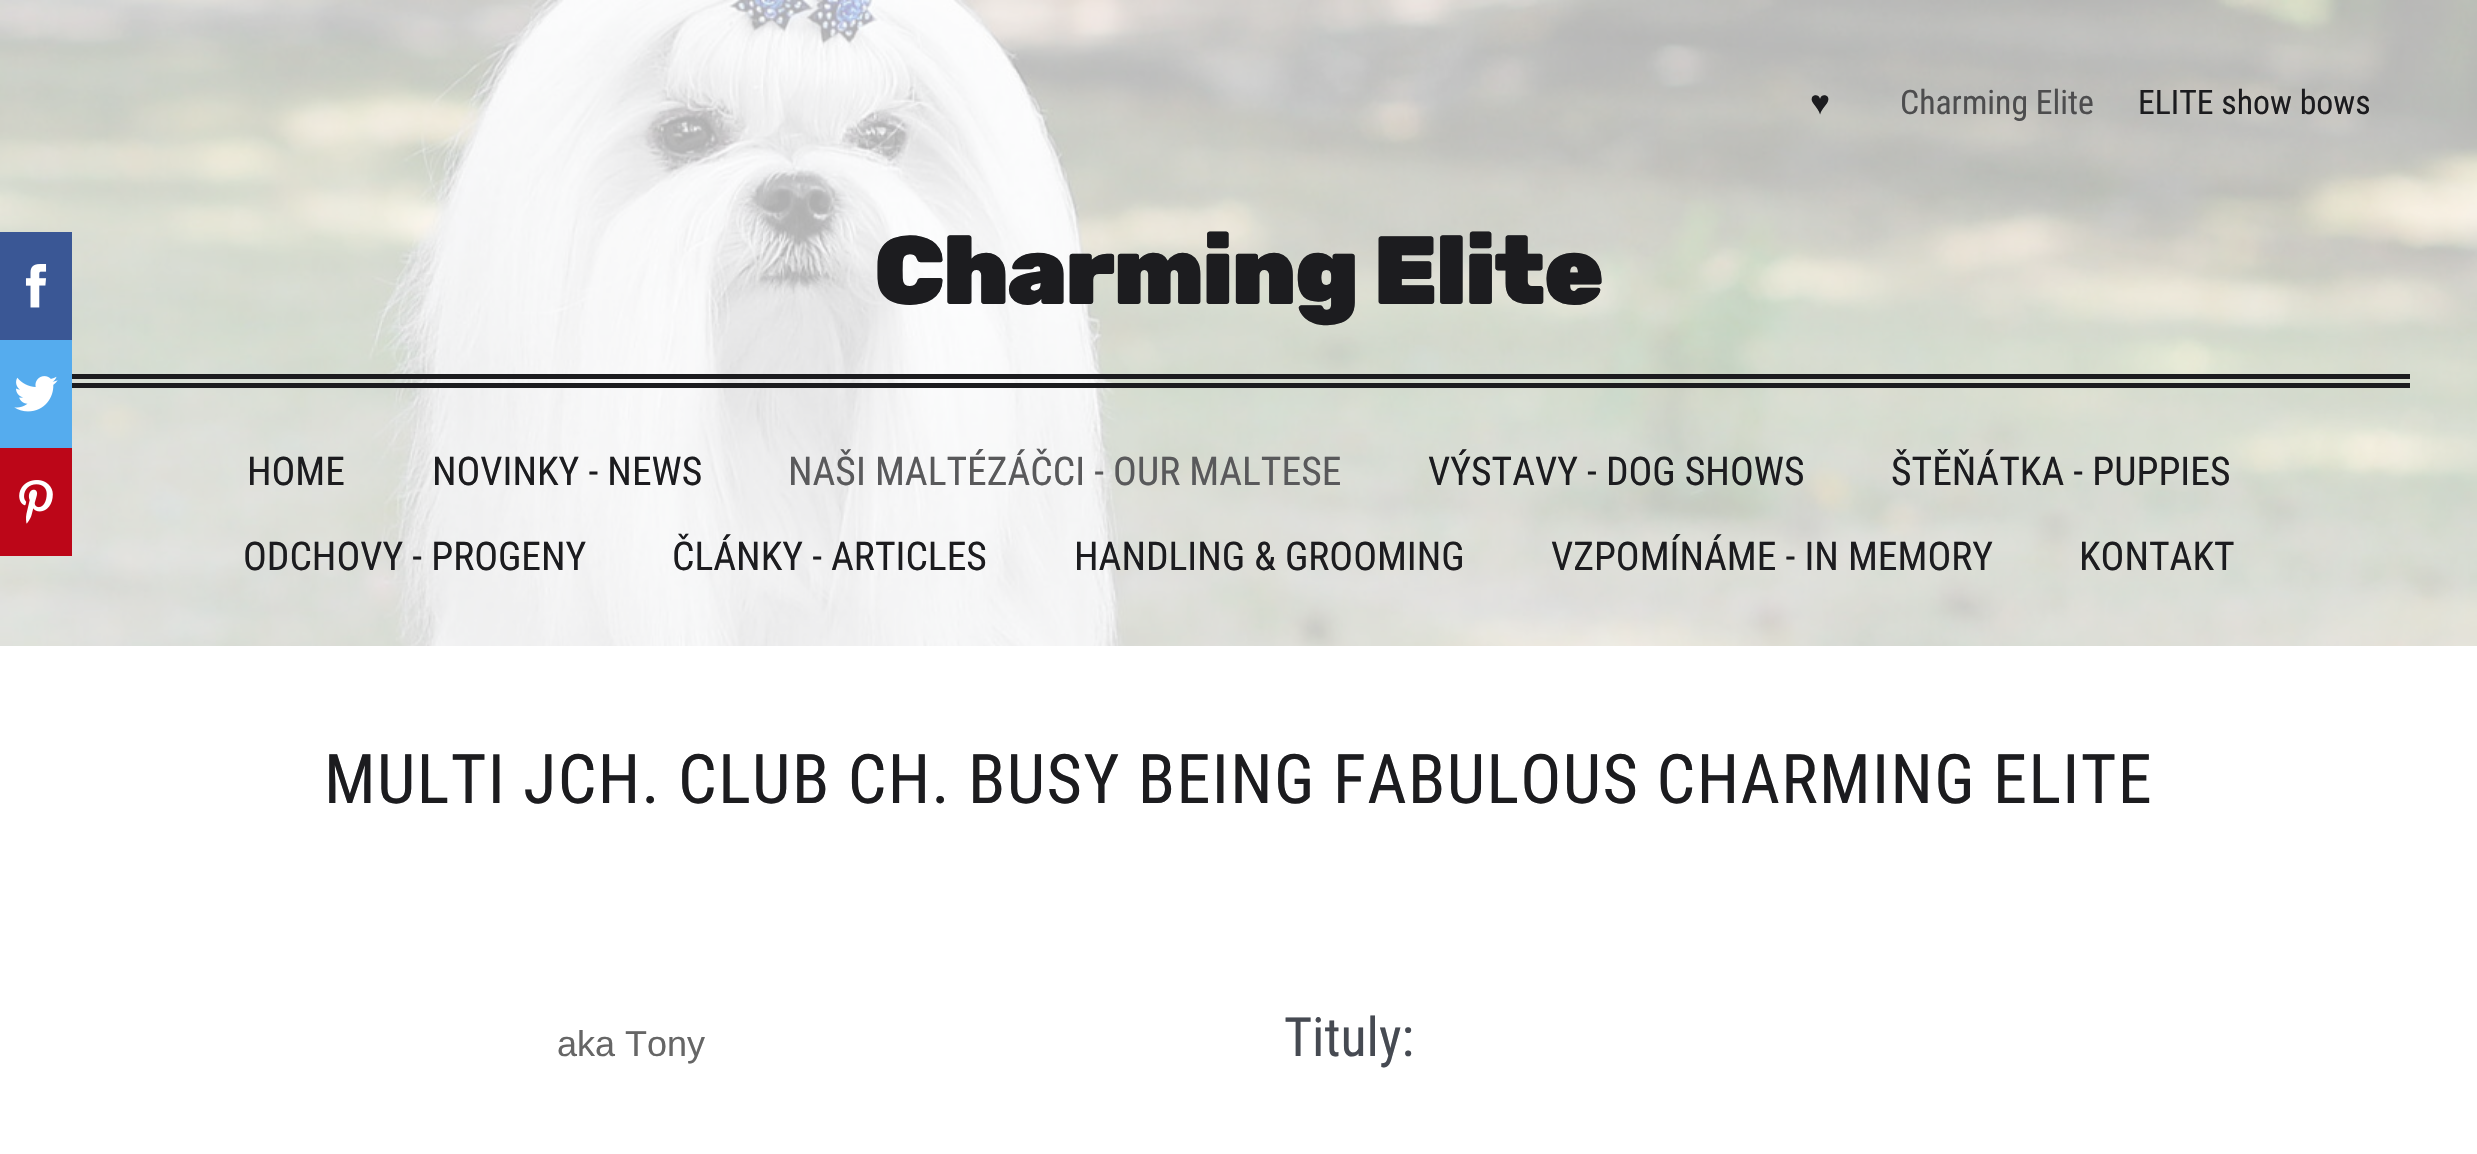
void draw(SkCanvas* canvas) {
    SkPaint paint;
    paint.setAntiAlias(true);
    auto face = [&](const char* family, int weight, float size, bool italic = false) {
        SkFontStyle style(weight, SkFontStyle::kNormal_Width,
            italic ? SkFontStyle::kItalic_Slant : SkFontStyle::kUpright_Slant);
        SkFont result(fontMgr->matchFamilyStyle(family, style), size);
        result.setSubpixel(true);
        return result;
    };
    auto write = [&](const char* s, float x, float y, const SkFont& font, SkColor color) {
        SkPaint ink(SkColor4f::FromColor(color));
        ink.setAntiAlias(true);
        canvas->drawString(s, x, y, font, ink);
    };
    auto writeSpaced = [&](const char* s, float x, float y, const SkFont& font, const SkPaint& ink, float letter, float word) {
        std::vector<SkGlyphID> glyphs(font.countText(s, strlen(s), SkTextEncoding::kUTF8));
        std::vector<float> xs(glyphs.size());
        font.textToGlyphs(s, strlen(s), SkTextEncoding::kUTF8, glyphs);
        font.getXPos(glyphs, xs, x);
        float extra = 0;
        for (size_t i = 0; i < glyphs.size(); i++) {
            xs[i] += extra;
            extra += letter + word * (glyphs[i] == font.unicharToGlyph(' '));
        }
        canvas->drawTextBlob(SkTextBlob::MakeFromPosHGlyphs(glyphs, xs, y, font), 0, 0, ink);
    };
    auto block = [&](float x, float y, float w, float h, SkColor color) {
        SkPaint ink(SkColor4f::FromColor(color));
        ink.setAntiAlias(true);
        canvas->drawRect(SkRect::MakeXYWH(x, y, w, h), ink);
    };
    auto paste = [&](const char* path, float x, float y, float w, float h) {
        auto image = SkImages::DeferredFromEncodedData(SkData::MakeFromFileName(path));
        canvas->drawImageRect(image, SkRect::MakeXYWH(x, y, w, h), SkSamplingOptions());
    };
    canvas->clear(SK_ColorWHITE);
    paste("pic1.png", 0, 0, 2477, 646);
    block(0, 232, 72, 108, SkColorSetRGB(58, 87, 149));
    paste("pic2.png", 25, 264, 22, 44);
    block(68, 374, 2342, 5, SkColorSetRGB(28, 28, 31));
    block(68, 383, 2342, 5, SkColorSetRGB(28, 28, 31));
    block(0, 340, 72, 108, SkColorSetRGB(85, 172, 238));
    paste("pic3.png", 14, 376, 44, 36);
    block(0, 448, 72, 108, SkColorSetRGB(188, 6, 24));
    paste("pic4.png", 19, 480, 34, 44);
    auto kFont1 = face("Liberation Sans", 400, 33.75f);
    write("♥", 1810, 114, kFont1, SkColorSetRGB(28, 28, 31));
    auto kFont2 = face("Roboto Condensed", 400, 33.75f);
    write("Charming Elite", 1900, 114, kFont2, SkColorSetRGB(77, 77, 78));
    write("ELITE show bows", 2138, 114, kFont2, SkColorSetRGB(28, 28, 31));
    auto kFont3 = face("Rubik", 300, 96.75f);
    paint.setColor(SkColorSetRGB(28, 28, 31));
    writeSpaced("Charming Elite", 874, 304, kFont3, paint, -2, 0);
    auto kFont4 = face("Roboto Condensed", 400, 39.6f);
    write("HOME", 247, 485, kFont4, SkColorSetRGB(28, 28, 31));
    write("NOVINKY - NEWS", 432, 485, kFont4, SkColorSetRGB(28, 28, 31));
    write("NAŠI MALTÉZÁČCI - OUR MALTESE", 788, 485, kFont4, SkColorSetRGB(89, 89, 91));
    write("VÝSTAVY - DOG SHOWS", 1428, 485, kFont4, SkColorSetRGB(28, 28, 31));
    write("ŠTĚŇÁTKA - PUPPIES", 1891, 485, kFont4, SkColorSetRGB(28, 28, 31));
    write("ODCHOVY - PROGENY", 243, 570, kFont4, SkColorSetRGB(28, 28, 31));
    write("ČLÁNKY - ARTICLES", 672, 570, kFont4, SkColorSetRGB(28, 28, 31));
    write("HANDLING & GROOMING", 1074, 570, kFont4, SkColorSetRGB(28, 28, 31));
    write("VZPOMÍNÁME - IN MEMORY", 1551, 570, kFont4, SkColorSetRGB(28, 28, 31));
    write("KONTAKT", 2079, 570, kFont4, SkColorSetRGB(28, 28, 31));
    auto kFont5 = face("Roboto Condensed", 400, 68.4f);
    writeSpaced("MULTI JCH. CLUB CH. BUSY BEING FABULOUS CHARMING ELITE", 324, 803, kFont5, paint, 1.37f, 0);
    auto kFont6 = face("Arimo", 400, 36);
    write("aka Tony", 557, 1056, kFont6, SkColorSetRGB(102, 102, 102));
    auto kFont7 = face("Roboto Condensed", 400, 54);
    write("Tituly:", 1284, 1056, kFont7, SkColorSetRGB(70, 74, 82));
}
